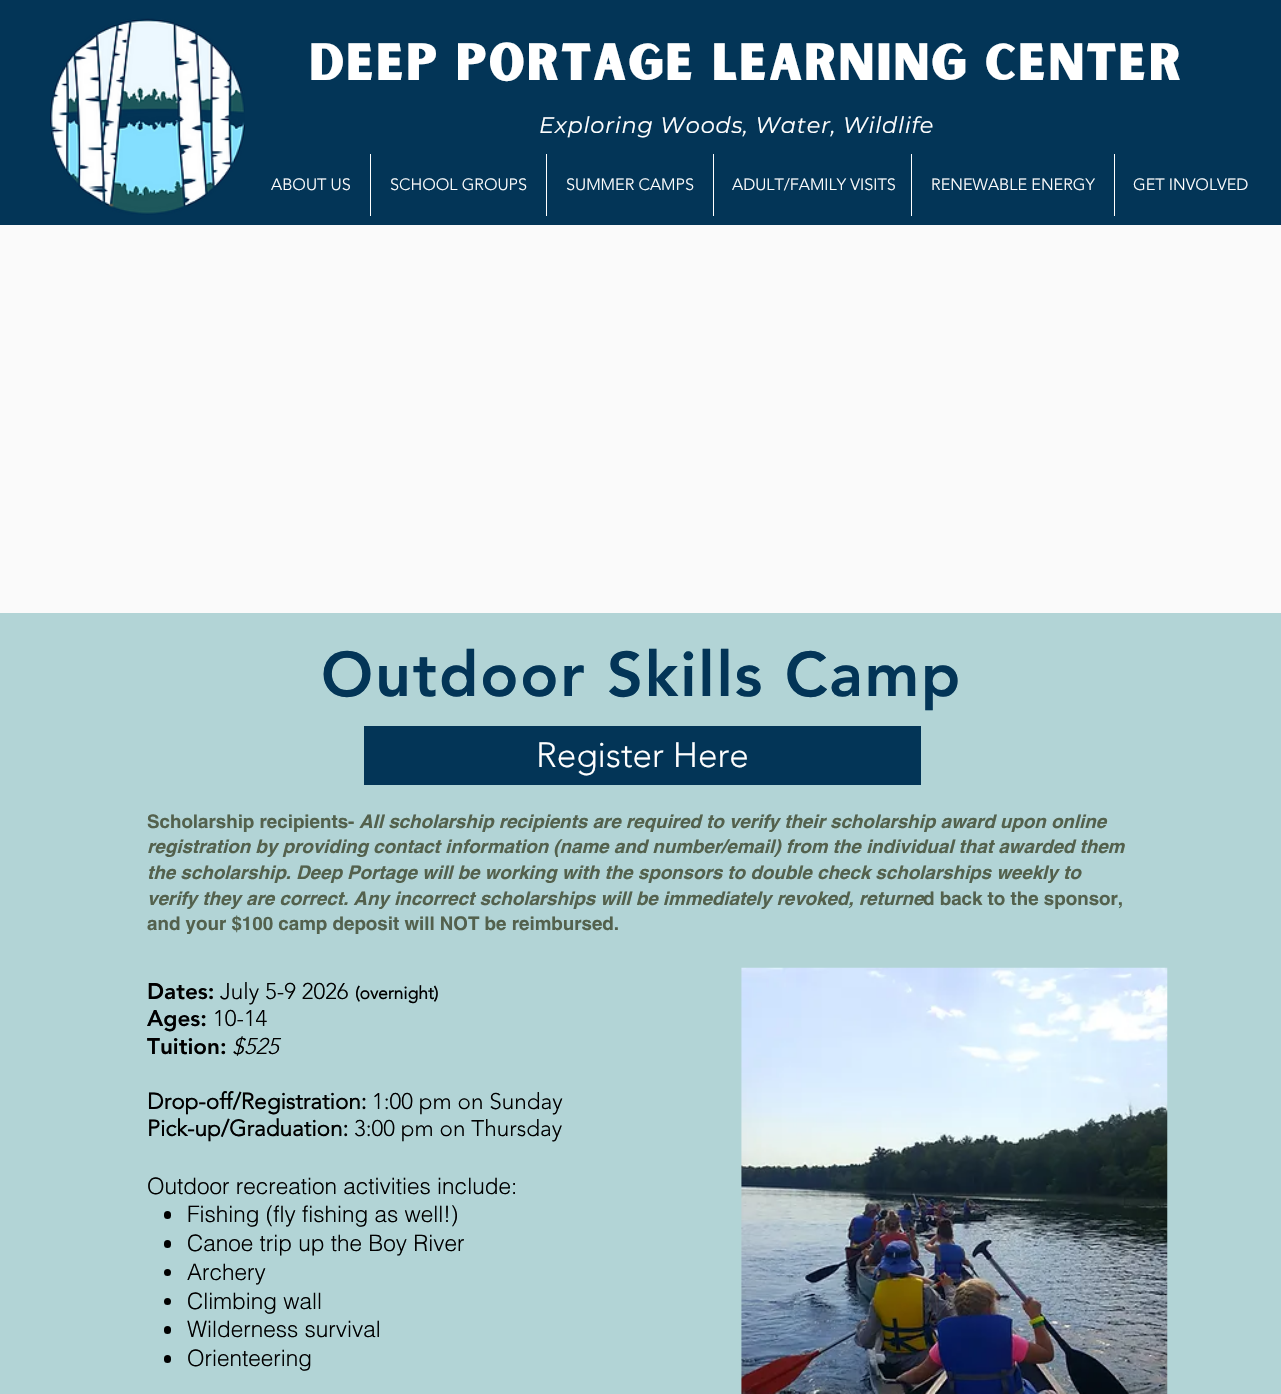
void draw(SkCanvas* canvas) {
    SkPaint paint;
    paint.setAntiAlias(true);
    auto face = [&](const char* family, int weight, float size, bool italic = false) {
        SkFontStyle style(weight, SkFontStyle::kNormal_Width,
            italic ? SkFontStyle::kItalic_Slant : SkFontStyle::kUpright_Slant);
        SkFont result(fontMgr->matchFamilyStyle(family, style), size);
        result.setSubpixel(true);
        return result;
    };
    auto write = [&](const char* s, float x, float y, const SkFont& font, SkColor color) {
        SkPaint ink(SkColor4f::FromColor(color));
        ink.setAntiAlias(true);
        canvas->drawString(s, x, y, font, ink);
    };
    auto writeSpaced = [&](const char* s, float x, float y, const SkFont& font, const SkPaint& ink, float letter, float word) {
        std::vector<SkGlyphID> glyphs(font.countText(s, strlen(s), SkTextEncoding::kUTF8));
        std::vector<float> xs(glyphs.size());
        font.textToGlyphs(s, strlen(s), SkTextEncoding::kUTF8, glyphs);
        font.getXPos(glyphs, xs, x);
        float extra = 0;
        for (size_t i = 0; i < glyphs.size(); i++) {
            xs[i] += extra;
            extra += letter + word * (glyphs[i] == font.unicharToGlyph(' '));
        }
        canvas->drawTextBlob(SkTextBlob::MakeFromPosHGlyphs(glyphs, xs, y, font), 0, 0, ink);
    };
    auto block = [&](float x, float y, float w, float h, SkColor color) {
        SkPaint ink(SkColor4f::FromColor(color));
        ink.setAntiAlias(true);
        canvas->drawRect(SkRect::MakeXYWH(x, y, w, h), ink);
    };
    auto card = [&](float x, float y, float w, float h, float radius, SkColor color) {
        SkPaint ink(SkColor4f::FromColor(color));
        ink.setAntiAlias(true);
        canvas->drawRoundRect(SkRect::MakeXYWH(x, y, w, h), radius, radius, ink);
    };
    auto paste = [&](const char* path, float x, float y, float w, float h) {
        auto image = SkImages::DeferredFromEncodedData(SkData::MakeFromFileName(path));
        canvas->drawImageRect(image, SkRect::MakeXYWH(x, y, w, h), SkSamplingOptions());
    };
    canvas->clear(SkColorSetRGB(178, 212, 214));
    block(0, 0, 1281, 225, SkColorSetRGB(3, 53, 87));
    paste("pic1.png", 50, 18, 195, 197);
    auto kFont1 = face("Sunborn", 400, 50);
    paint.setColor(SK_ColorWHITE);
    writeSpaced("Deep Portage Learning Center", 309, 80, kFont1, paint, 1.5f, 0);
    auto kFont2 = face("Montserrat", 400, 22.5f, true);
    writeSpaced("Exploring Woods, Water, Wildlife", 539, 133, kFont2, paint, 0.7f, 0);
    auto kFont3 = face("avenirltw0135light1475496", 300, 16.25f);
    write("ABOUT US", 271, 190, kFont3, SK_ColorWHITE);
    block(370, 154, 1, 62, SK_ColorWHITE);
    write("SCHOOL GROUPS", 390, 190, kFont3, SK_ColorWHITE);
    block(546, 154, 1, 62, SK_ColorWHITE);
    write("SUMMER CAMPS", 566, 190, kFont3, SK_ColorWHITE);
    block(713, 154, 1, 62, SK_ColorWHITE);
    write("ADULT/FAMILY VISITS", 732, 190, kFont3, SK_ColorWHITE);
    block(911, 154, 1, 62, SK_ColorWHITE);
    write("RENEWABLE ENERGY", 931, 190, kFont3, SK_ColorWHITE);
    block(1114, 154, 1, 62, SK_ColorWHITE);
    write("GET INVOLVED", 1133, 190, kFont3, SK_ColorWHITE);
    block(0, 225, 1281, 388, SkColorSetRGB(250, 250, 250));
    auto kFont4 = face("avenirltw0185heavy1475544", 900, 62.5f);
    paint.setColor(SkColorSetRGB(3, 53, 87));
    writeSpaced("Outdoor Skills Camp", 321, 696, kFont4, paint, 1.9f, 0);
    block(364, 726, 557, 59, SkColorSetRGB(3, 53, 87));
    auto kFont5 = face("avenirltw0135light1475496", 300, 35);
    write("Register Here", 536, 767, kFont5, SK_ColorWHITE);
    auto kFont6 = face("helvetica", 700, 18.75f);
    write("Scholarship recipients-", 147, 828, kFont6, SkColorSetRGB(83, 97, 77));
    auto kFont7 = face("helvetica", 700, 18.75f, true);
    write("All scholarship recipients are required to verify their scholarship award upon online", 359, 828, kFont7, SkColorSetRGB(83, 97, 77));
    write("registration by providing contact information (name and number/email) from the individual that awarded them", 147, 853, kFont7, SkColorSetRGB(83, 97, 77));
    write("the scholarship. Deep Portage will be working with the sponsors to double check scholarships weekly to", 147, 879, kFont7, SkColorSetRGB(83, 97, 77));
    write("verify they are correct. Any incorrect scholarships will be immediately revoked, returne", 147, 905, kFont7, SkColorSetRGB(83, 97, 77));
    write("d back to the sponsor,", 923, 905, kFont6, SkColorSetRGB(83, 97, 77));
    write("and your $100 camp deposit will NOT be reimbursed.", 147, 930, kFont6, SkColorSetRGB(83, 97, 77));
    auto kFont8 = face("avenirltw0185heavy1475544", 900, 22.5f);
    write("Dates:", 147, 999, kFont8, SK_ColorBLACK);
    auto kFont9 = face("avenirltw0135light1475496", 300, 22.5f);
    write("July 5-9 2026", 220, 999, kFont9, SK_ColorBLACK);
    auto kFont10 = face("avenirltw0135light1475496", 700, 17.5f);
    write("(overnight)", 355, 999, kFont10, SK_ColorBLACK);
    write("Ages:", 147, 1026, kFont8, SK_ColorBLACK);
    write("10-14", 213, 1026, kFont9, SK_ColorBLACK);
    write("Tuition:", 147, 1054, kFont8, SK_ColorBLACK);
    auto kFont11 = face("avenirltw0135light1475496", 300, 22.5f, true);
    write("$525", 232, 1054, kFont11, SK_ColorBLACK);
    auto kFont12 = face("avenirltw0135light1475496", 700, 22.5f);
    write("Drop-off/Registration:", 147, 1109, kFont12, SK_ColorBLACK);
    write("1:00 pm on Sunday", 372, 1109, kFont9, SK_ColorBLACK);
    write("Pick-up/Graduation:", 147, 1136, kFont12, SK_ColorBLACK);
    write("3:00 pm on Thursday", 354, 1136, kFont9, SK_ColorBLACK);
    auto kFont13 = face("helvetica", 300, 22.5f);
    write("Outdoor recreation activities include:", 147, 1194, kFont13, SK_ColorBLACK);
    card(164, 1211, 7, 8, 3.5f, SK_ColorBLACK);
    write("Fishing (fly fishing as well!)", 187, 1222, kFont13, SK_ColorBLACK);
    card(164, 1240, 7, 8, 3.5f, SK_ColorBLACK);
    write("Canoe trip up the Boy River", 187, 1251, kFont13, SK_ColorBLACK);
    paint.setColor(SK_ColorBLACK);
    canvas->drawCircle(167.5f, 1272.5f, 3.5f, paint);
    write("Archery", 187, 1280, kFont13, SK_ColorBLACK);
    canvas->drawCircle(167.5f, 1301.5f, 3.5f, paint);
    write("Climbing wall", 187, 1309, kFont13, SK_ColorBLACK);
    card(164, 1326, 7, 8, 3.5f, SK_ColorBLACK);
    write("Wilderness survival", 187, 1337, kFont13, SK_ColorBLACK);
    card(164, 1355, 7, 8, 3.5f, SK_ColorBLACK);
    write("Orienteering", 187, 1366, kFont13, SK_ColorBLACK);
    paste("pic2.png", 741, 967, 427, 427);
}
